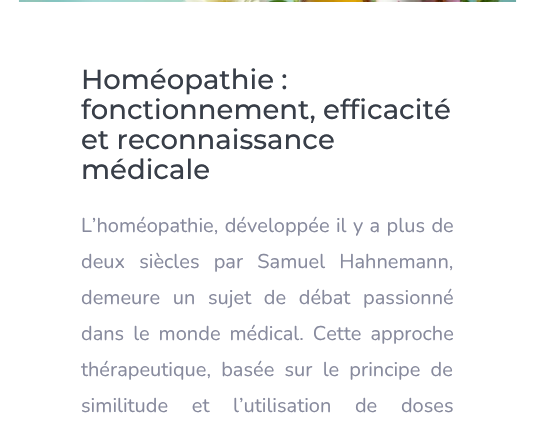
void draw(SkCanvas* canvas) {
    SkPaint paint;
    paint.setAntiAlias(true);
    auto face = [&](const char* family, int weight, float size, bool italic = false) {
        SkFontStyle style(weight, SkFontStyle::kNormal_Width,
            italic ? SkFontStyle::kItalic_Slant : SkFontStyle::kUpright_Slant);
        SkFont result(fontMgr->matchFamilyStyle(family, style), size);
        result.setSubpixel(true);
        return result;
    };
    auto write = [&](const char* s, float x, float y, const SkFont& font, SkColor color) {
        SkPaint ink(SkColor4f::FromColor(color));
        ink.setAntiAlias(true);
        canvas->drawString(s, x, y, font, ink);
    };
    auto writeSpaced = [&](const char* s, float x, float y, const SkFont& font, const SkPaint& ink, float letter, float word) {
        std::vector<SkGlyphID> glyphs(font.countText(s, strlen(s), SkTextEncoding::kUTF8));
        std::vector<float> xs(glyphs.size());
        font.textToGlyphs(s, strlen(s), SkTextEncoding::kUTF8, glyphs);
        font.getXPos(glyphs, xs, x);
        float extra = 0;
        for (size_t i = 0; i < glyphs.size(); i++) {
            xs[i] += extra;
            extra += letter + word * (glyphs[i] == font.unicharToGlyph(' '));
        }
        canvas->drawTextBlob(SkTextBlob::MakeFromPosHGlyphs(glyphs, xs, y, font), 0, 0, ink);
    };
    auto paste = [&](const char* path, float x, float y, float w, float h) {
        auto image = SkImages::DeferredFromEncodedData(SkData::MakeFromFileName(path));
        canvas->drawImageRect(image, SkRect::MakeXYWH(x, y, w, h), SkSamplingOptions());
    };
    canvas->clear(SK_ColorWHITE);
    paste("pic1.png", 18, 0, 499, 2);
    auto kFont1 = face("Montserrat", 500, 27.5f);
    write("Homéopathie :", 81, 89, kFont1, SkColorSetRGB(56, 62, 72));
    write("fonctionnement, efficacité", 81, 119, kFont1, SkColorSetRGB(56, 62, 72));
    write("et reconnaissance", 81, 149, kFont1, SkColorSetRGB(56, 62, 72));
    write("médicale", 81, 179, kFont1, SkColorSetRGB(56, 62, 72));
    auto kFont2 = face("Nunito", 400, 20);
    paint.setColor(SkColorSetRGB(135, 138, 157));
    writeSpaced("L’homéopathie, développée il y a plus de", 81, 232, kFont2, paint, 0, 1.25f);
    writeSpaced("deux siècles par Samuel Hahnemann,", 81, 268, kFont2, paint, 0, 9);
    writeSpaced("demeure un sujet de débat passionné", 81, 304, kFont2, paint, 0, 7.5f);
    writeSpaced("dans le monde médical. Cette approche", 81, 340, kFont2, paint, 0, 3.75f);
    writeSpaced("thérapeutique, basée sur le principe de", 81, 376, kFont2, paint, 0, 5);
    writeSpaced("similitude et l’utilisation de doses", 81, 412, kFont2, paint, 0, 18.5f);
}
